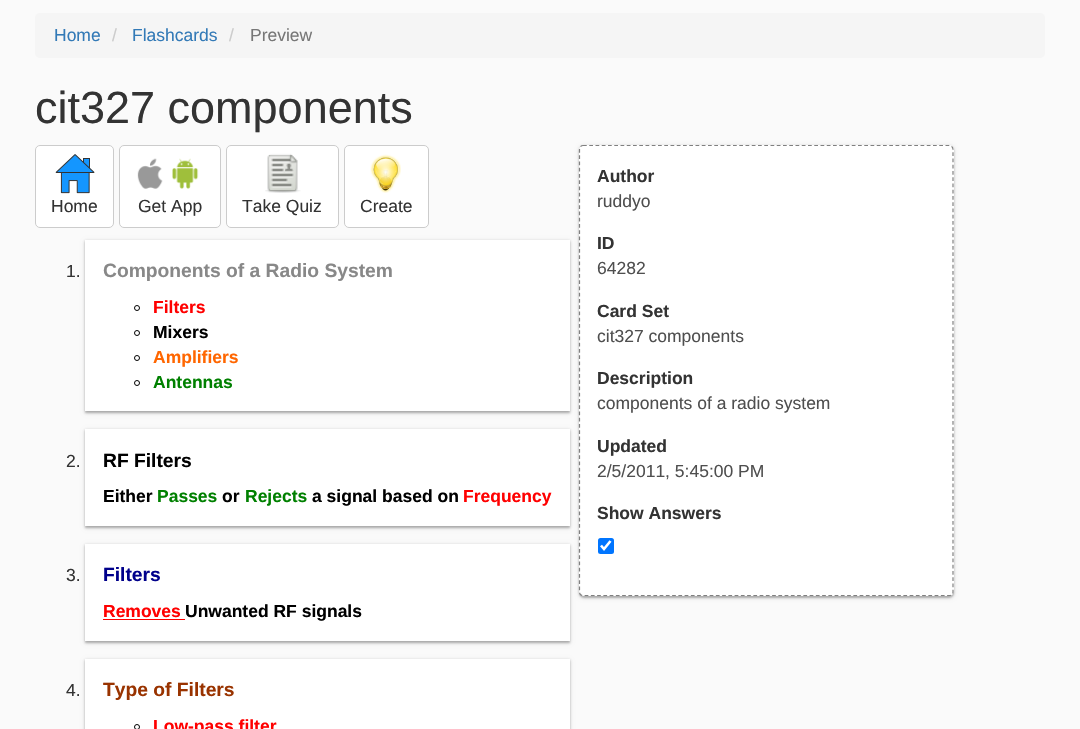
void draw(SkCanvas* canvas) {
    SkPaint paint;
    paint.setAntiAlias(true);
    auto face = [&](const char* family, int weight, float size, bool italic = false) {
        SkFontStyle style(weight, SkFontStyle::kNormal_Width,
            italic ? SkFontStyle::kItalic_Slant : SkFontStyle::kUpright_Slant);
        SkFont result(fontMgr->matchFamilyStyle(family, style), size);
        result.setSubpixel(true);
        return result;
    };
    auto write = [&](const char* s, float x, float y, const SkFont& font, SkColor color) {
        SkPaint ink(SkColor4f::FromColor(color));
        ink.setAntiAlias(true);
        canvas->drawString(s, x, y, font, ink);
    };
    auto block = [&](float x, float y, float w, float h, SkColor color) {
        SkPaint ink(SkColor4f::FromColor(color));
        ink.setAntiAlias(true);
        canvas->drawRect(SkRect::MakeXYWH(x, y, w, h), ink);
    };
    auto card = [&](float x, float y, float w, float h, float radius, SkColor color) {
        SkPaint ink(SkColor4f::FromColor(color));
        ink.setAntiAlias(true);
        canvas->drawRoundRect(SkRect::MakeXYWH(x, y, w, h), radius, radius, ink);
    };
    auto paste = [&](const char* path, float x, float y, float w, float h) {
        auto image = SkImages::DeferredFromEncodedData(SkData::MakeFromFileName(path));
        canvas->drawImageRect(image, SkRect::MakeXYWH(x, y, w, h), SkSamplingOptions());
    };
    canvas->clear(SkColorSetRGB(250, 250, 250));
    card(35, 13, 1010, 45, 5, SkColorSetRGB(245, 245, 245));
    auto kFont1 = face("Liberation Sans", 400, 17.5f);
    write("Home", 54, 41, kFont1, SkColorSetRGB(51, 122, 183));
    write("/", 112, 41, kFont1, SkColorSetRGB(204, 204, 204));
    write("Flashcards", 132, 41, kFont1, SkColorSetRGB(51, 122, 183));
    write("/", 229, 41, kFont1, SkColorSetRGB(204, 204, 204));
    write("Preview", 250, 41, kFont1, SkColorSetRGB(119, 119, 119));
    auto kFont2 = face("Liberation Sans", 400, 45);
    write("cit327 components", 35, 123, kFont2, SkColorSetRGB(51, 51, 51));
    paint.setColor(SK_ColorWHITE);
    canvas->drawRoundRect(SkRect::MakeXYWH(35.5f, 145.5f, 78, 82), 4.5f, 4.5f, paint);
    paint.setStyle(SkPaint::kStroke_Style);
    paint.setStrokeWidth(1);
    paint.setColor(SkColorSetRGB(204, 204, 204));
    canvas->drawRoundRect(SkRect::MakeXYWH(35.5f, 145.5f, 78, 82), 4.5f, 4.5f, paint);
    paste("pic1.png", 55, 154, 40, 40);
    write("Home", 51, 212, kFont1, SkColorSetRGB(51, 51, 51));
    paint.setStyle(SkPaint::kFill_Style);
    paint.setColor(SK_ColorWHITE);
    canvas->drawRoundRect(SkRect::MakeXYWH(119.5f, 145.5f, 101, 82), 4.5f, 4.5f, paint);
    paint.setStyle(SkPaint::kStroke_Style);
    paint.setColor(SkColorSetRGB(204, 204, 204));
    canvas->drawRoundRect(SkRect::MakeXYWH(119.5f, 145.5f, 101, 82), 4.5f, 4.5f, paint);
    paste("pic2.png", 137, 158, 26, 31);
    paste("pic3.png", 172, 158, 27, 31);
    write("Get App", 138, 212, kFont1, SkColorSetRGB(51, 51, 51));
    paint.setStyle(SkPaint::kFill_Style);
    paint.setColor(SK_ColorWHITE);
    canvas->drawRoundRect(SkRect::MakeXYWH(226.5f, 145.5f, 112, 82), 4.5f, 4.5f, paint);
    paint.setStyle(SkPaint::kStroke_Style);
    paint.setColor(SkColorSetRGB(204, 204, 204));
    canvas->drawRoundRect(SkRect::MakeXYWH(226.5f, 145.5f, 112, 82), 4.5f, 4.5f, paint);
    paste("pic4.png", 265, 153, 36, 40);
    write("Take Quiz", 242, 212, kFont1, SkColorSetRGB(51, 51, 51));
    paint.setStyle(SkPaint::kFill_Style);
    paint.setColor(SK_ColorWHITE);
    canvas->drawRoundRect(SkRect::MakeXYWH(344.5f, 145.5f, 84, 82), 4.5f, 4.5f, paint);
    paint.setStyle(SkPaint::kStroke_Style);
    paint.setColor(SkColorSetRGB(204, 204, 204));
    canvas->drawRoundRect(SkRect::MakeXYWH(344.5f, 145.5f, 84, 82), 4.5f, 4.5f, paint);
    paste("pic5.png", 370, 154, 31, 39);
    write("Create", 360, 212, kFont1, SkColorSetRGB(51, 51, 51));
    paint.setStyle(SkPaint::kFill_Style);
    paint.setColor(SkColorSetARGB(31, 0, 0, 0));
    paint.setMaskFilter(SkMaskFilter::MakeBlur(kNormal_SkBlurStyle, 2));
    canvas->drawRect(SkRect::MakeXYWH(85, 241, 485, 172), paint);
    paint.setMaskFilter(nullptr);
    write("1.", 66, 277, kFont1, SkColorSetRGB(51, 51, 51));
    paint.setColor(SkColorSetARGB(61, 0, 0, 0));
    paint.setMaskFilter(SkMaskFilter::MakeBlur(kNormal_SkBlurStyle, 1));
    canvas->drawRect(SkRect::MakeXYWH(85, 241, 485, 172), paint);
    paint.setMaskFilter(nullptr);
    block(85, 240, 485, 171, SK_ColorWHITE);
    auto kFont3 = face("Liberation Sans", 700, 19.25f);
    write("Components of a Radio System", 103, 277, kFont3, SkColorSetRGB(136, 136, 136));
    paint.setStyle(SkPaint::kStroke_Style);
    paint.setColor(SK_ColorBLACK);
    canvas->drawCircle(137, 308, 2.5f, paint);
    auto kFont4 = face("Liberation Sans", 700, 17.5f);
    write("Filters", 153, 313, kFont4, SkColorSetRGB(255, 0, 0));
    canvas->drawCircle(137, 333, 2.5f, paint);
    write("Mixers", 153, 338, kFont4, SK_ColorBLACK);
    canvas->drawCircle(137, 358, 2.5f, paint);
    write("Amplifiers", 153, 363, kFont4, SkColorSetRGB(255, 102, 0));
    canvas->drawCircle(137, 383, 2.5f, paint);
    write("Antennas", 153, 388, kFont4, SkColorSetRGB(0, 128, 0));
    paint.setStyle(SkPaint::kFill_Style);
    paint.setColor(SkColorSetARGB(31, 0, 0, 0));
    paint.setMaskFilter(SkMaskFilter::MakeBlur(kNormal_SkBlurStyle, 2));
    canvas->drawRect(SkRect::MakeXYWH(85, 430, 485, 98), paint);
    paint.setMaskFilter(nullptr);
    write("2.", 66, 467, kFont1, SkColorSetRGB(51, 51, 51));
    paint.setColor(SkColorSetARGB(61, 0, 0, 0));
    paint.setMaskFilter(SkMaskFilter::MakeBlur(kNormal_SkBlurStyle, 1));
    canvas->drawRect(SkRect::MakeXYWH(85, 430, 485, 98), paint);
    paint.setMaskFilter(nullptr);
    block(85, 429, 485, 97, SK_ColorWHITE);
    write("RF Filters", 103, 467, kFont3, SK_ColorBLACK);
    write("Either", 103, 502, kFont4, SK_ColorBLACK);
    write("Passes", 157, 502, kFont4, SkColorSetRGB(0, 128, 0));
    write("or", 222, 502, kFont4, SK_ColorBLACK);
    write("Rejects", 245, 502, kFont4, SkColorSetRGB(0, 128, 0));
    write("a signal based on", 312, 502, kFont4, SK_ColorBLACK);
    write("Frequency", 463, 502, kFont4, SkColorSetRGB(255, 0, 0));
    paint.setColor(SkColorSetARGB(31, 0, 0, 0));
    paint.setMaskFilter(SkMaskFilter::MakeBlur(kNormal_SkBlurStyle, 2));
    canvas->drawRect(SkRect::MakeXYWH(85, 545, 485, 98), paint);
    paint.setMaskFilter(nullptr);
    write("3.", 66, 581, kFont1, SkColorSetRGB(51, 51, 51));
    paint.setColor(SkColorSetARGB(61, 0, 0, 0));
    paint.setMaskFilter(SkMaskFilter::MakeBlur(kNormal_SkBlurStyle, 1));
    canvas->drawRect(SkRect::MakeXYWH(85, 545, 485, 98), paint);
    paint.setMaskFilter(nullptr);
    block(85, 544, 485, 97, SK_ColorWHITE);
    write("Filters", 103, 581, kFont3, SkColorSetRGB(0, 0, 139));
    write("Removes", 103, 617, kFont4, SkColorSetRGB(255, 0, 0));
    write("Unwanted RF signals", 185, 617, kFont4, SK_ColorBLACK);
    block(103, 619, 82, 1, SkColorSetRGB(255, 0, 0));
    paint.setColor(SkColorSetARGB(31, 0, 0, 0));
    paint.setMaskFilter(SkMaskFilter::MakeBlur(kNormal_SkBlurStyle, 2));
    canvas->drawRect(SkRect::MakeXYWH(85, 660, 485, 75), paint);
    paint.setMaskFilter(nullptr);
    write("4.", 66, 696, kFont1, SkColorSetRGB(51, 51, 51));
    paint.setColor(SkColorSetARGB(61, 0, 0, 0));
    paint.setMaskFilter(SkMaskFilter::MakeBlur(kNormal_SkBlurStyle, 1));
    canvas->drawRect(SkRect::MakeXYWH(85, 660, 485, 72), paint);
    paint.setMaskFilter(nullptr);
    block(85, 659, 485, 70, SK_ColorWHITE);
    write("Type of Filters", 103, 696, kFont3, SkColorSetRGB(153, 51, 0));
    paint.setStyle(SkPaint::kStroke_Style);
    paint.setColor(SK_ColorBLACK);
    canvas->drawCircle(137, 727, 2.5f, paint);
    write("Low-pass filter", 153, 732, kFont4, SkColorSetRGB(255, 0, 0));
    paint.setStyle(SkPaint::kFill_Style);
    paint.setColor(SkColorSetARGB(61, 0, 0, 0));
    paint.setMaskFilter(SkMaskFilter::MakeBlur(kNormal_SkBlurStyle, 1));
    canvas->drawRoundRect(SkRect::MakeXYWH(579, 146, 375, 452), 5, 5, paint);
    paint.setMaskFilter(nullptr);
    paint.setColor(SkColorSetARGB(31, 0, 0, 0));
    paint.setMaskFilter(SkMaskFilter::MakeBlur(kNormal_SkBlurStyle, 2));
    canvas->drawRoundRect(SkRect::MakeXYWH(579, 146, 375, 452), 5, 5, paint);
    paint.setMaskFilter(nullptr);
    card(579, 145, 375, 451, 5, SK_ColorWHITE);
    paint.setStyle(SkPaint::kStroke_Style);
    paint.setStrokeWidth(1.2f);
    paint.setColor(SkColorSetRGB(128, 128, 128));
    paint.setPathEffect(SkDashPathEffect::Make({{3.75f, 2.5f}}, 0));
    canvas->drawPath(SkPathBuilder().moveTo(583, 145.5f).lineTo(949.5f, 145.5f).cubicTo(951.5f, 145.5f, 953, 147.5f, 953, 149.5f).lineTo(953, 592).cubicTo(953, 594, 951.5f, 595.5f, 949.5f, 595.5f).lineTo(583, 595.5f).cubicTo(581, 595.5f, 579.5f, 594, 579.5f, 592).lineTo(579.5f, 149.5f).cubicTo(579.5f, 147.5f, 581, 145.5f, 583, 145.5f).close().detach(), paint);
    paint.setPathEffect(nullptr);
    write("Author", 597, 182, kFont4, SkColorSetRGB(51, 51, 51));
    write("ruddyo", 597, 207, kFont1, SkColorSetRGB(79, 79, 79));
    write("ID", 597, 249, kFont4, SkColorSetRGB(51, 51, 51));
    write("64282", 597, 274, kFont1, SkColorSetRGB(79, 79, 79));
    write("Card Set", 597, 317, kFont4, SkColorSetRGB(51, 51, 51));
    write("cit327 components", 597, 342, kFont1, SkColorSetRGB(79, 79, 79));
    write("Description", 597, 384, kFont4, SkColorSetRGB(51, 51, 51));
    write("components of a radio system", 597, 409, kFont1, SkColorSetRGB(79, 79, 79));
    write("Updated", 597, 452, kFont4, SkColorSetRGB(51, 51, 51));
    write("2/5/2011, 5:45:00 PM", 597, 477, kFont1, SkColorSetRGB(79, 79, 79));
    write("Show Answers", 597, 519, kFont4, SkColorSetRGB(51, 51, 51));
    card(598, 538, 16, 16, 2.5f, SkColorSetRGB(0, 117, 255));
    paint.setStrokeWidth(2.6f);
    paint.setColor(SK_ColorWHITE);
    canvas->drawPath(SkPathBuilder().moveTo(601, 545.5f).lineTo(604, 549).lineTo(610.5f, 541).detach(), paint);
}
